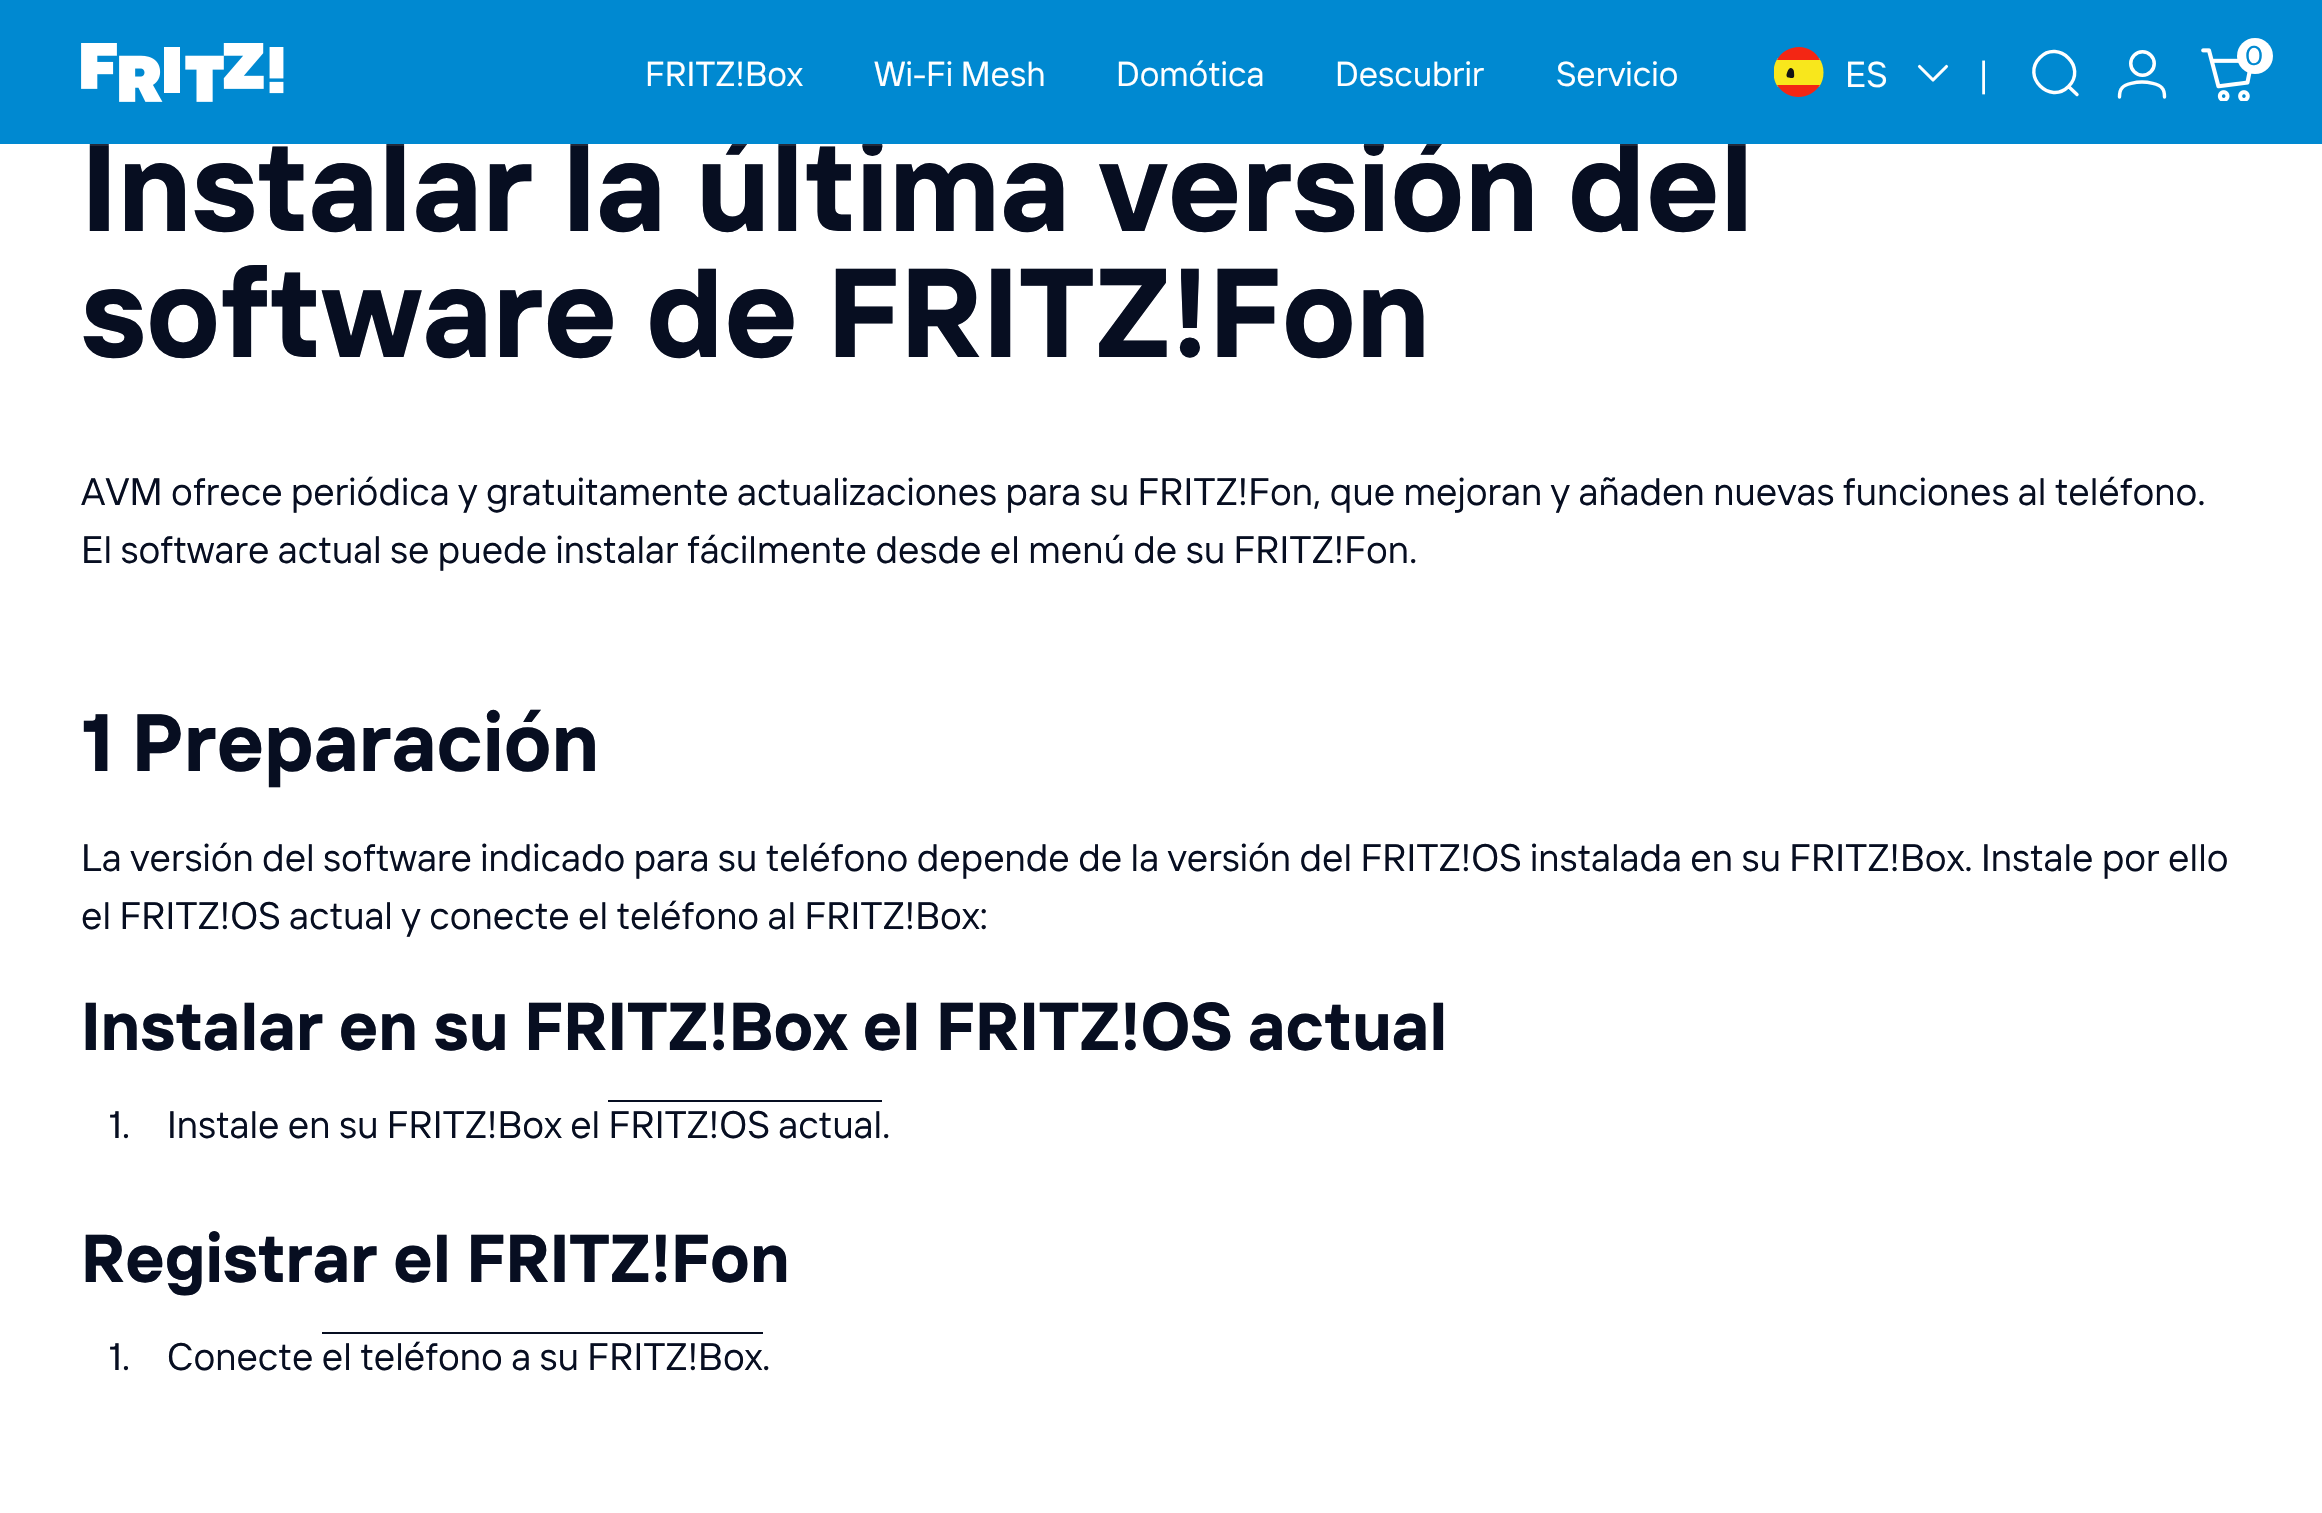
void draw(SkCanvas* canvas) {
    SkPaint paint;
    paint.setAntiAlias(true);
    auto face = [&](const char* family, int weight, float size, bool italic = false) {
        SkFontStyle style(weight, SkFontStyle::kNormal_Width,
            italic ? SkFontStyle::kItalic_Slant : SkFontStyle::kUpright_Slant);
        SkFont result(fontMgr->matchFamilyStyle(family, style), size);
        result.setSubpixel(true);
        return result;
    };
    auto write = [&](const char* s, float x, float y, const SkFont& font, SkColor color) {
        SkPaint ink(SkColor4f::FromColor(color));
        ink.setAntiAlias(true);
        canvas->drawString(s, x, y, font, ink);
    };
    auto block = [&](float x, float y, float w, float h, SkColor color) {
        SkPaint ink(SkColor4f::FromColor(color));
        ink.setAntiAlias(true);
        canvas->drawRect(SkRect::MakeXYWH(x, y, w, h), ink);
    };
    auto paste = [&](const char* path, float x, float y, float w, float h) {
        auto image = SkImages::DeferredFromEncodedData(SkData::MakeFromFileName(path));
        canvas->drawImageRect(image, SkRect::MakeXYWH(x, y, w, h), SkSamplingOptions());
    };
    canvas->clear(SK_ColorWHITE);
    auto kFont1 = face("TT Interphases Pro", 700, 126);
    write("Instalar la última versión del", 81, 231, kFont1, SkColorSetRGB(7, 14, 33));
    block(0, 0, 2322, 144, SkColorSetRGB(0, 137, 209));
    paste("pic1.png", 81, 43, 203, 59);
    auto kFont2 = face("TT Interphases Pro", 400, 34.5f);
    write("FRITZ!Box", 645, 86, kFont2, SK_ColorWHITE);
    write("Wi-Fi Mesh", 874, 86, kFont2, SK_ColorWHITE);
    write("Domótica", 1116, 86, kFont2, SK_ColorWHITE);
    write("Descubrir", 1335, 86, kFont2, SK_ColorWHITE);
    write("Servicio", 1556, 86, kFont2, SK_ColorWHITE);
    paint.setStyle(SkPaint::kStroke_Style);
    paint.setStrokeWidth(3.4f);
    paint.setStrokeCap(SkPaint::kRound_Cap);
    paint.setColor(SK_ColorWHITE);
    canvas->drawPath(SkPathBuilder().moveTo(2077, 94.5f).lineTo(2068.5f, 86.5f).moveTo(2068.5f, 86.5f).cubicTo(2087.5f, 67.5f, 2058.5f, 39, 2040, 57.5f).cubicTo(2021, 76.5f, 2050, 105, 2068.5f, 86.5f).close().detach(), paint);
    paint.setStrokeWidth(3.5f);
    paint.setStrokeCap(SkPaint::kButt_Cap);
    canvas->drawCircle(2142.5f, 63.5f, 11.75f, paint);
    paint.setStrokeWidth(3.4f);
    paint.setStrokeCap(SkPaint::kRound_Cap);
    canvas->drawPath(SkPathBuilder().moveTo(2142, 82).cubicTo(2147, 82, 2159, 83.5f, 2162, 88).cubicTo(2164.5f, 90.5f, 2164.5f, 93.5f, 2164.5f, 97).moveTo(2142, 82).cubicTo(2137, 82, 2125, 83.5f, 2122, 88).cubicTo(2119.5f, 90.5f, 2119.5f, 93.5f, 2119.5f, 97).detach(), paint);
    paste("pic2.png", 2201, 48, 51, 53);
    paint.setStyle(SkPaint::kFill_Style);
    canvas->drawCircle(2255, 56, 18, paint);
    auto kFont3 = face("TT Interphases Pro", 400, 27);
    write("0", 2245, 65, kFont3, SkColorSetRGB(0, 137, 209));
    canvas->save();
    canvas->clipRect(SkRect::MakeXYWH(1774, 47, 50, 50));
    paint.setColor(SkColorSetRGB(248, 231, 28));
    canvas->drawPath(SkPathBuilder().moveTo(1819, 58).lineTo(1778, 58).cubicTo(1772, 66, 1772, 79, 1778, 87).lineTo(1819, 87).cubicTo(1825, 79, 1825, 66, 1819, 58).close().detach(), paint);
    canvas->restore();
    paint.setColor(SkColorSetRGB(243, 38, 20));
    canvas->drawPath(SkPathBuilder().moveTo(1820, 85).lineTo(1777, 85).cubicTo(1787, 101, 1810, 101, 1820, 85).close().moveTo(1799, 47).cubicTo(1808, 47, 1816, 52, 1820, 60).lineTo(1777, 60).cubicTo(1781, 52, 1790, 47, 1799, 47).close().detach(), paint);
    paint.setColor(SkColorSetRGB(19, 20, 19));
    canvas->drawPath(SkPathBuilder().moveTo(1786.5f, 75.5f).cubicTo(1786.5f, 78, 1790.5f, 78, 1792.5f, 78).cubicTo(1795, 78, 1794, 74, 1794, 72).cubicTo(1794, 70, 1792.5f, 68, 1790.5f, 68).cubicTo(1788.5f, 68, 1786.5f, 73.5f, 1786.5f, 75.5f).close().detach(), paint);
    auto kFont4 = face("TT Interphases Pro", 400, 36);
    write("ES", 1845, 87, kFont4, SK_ColorWHITE);
    paint.setStyle(SkPaint::kStroke_Style);
    paint.setStrokeWidth(3.1f);
    paint.setStrokeJoin(SkPaint::kRound_Join);
    paint.setColor(SK_ColorWHITE);
    canvas->drawPath(SkPathBuilder().moveTo(1919.5f, 66.5f).lineTo(1933, 80).lineTo(1946.5f, 66.5f).detach(), paint);
    write("|", 1978, 87, kFont4, SK_ColorWHITE);
    block(89, 144, 1657, 2, SkColorSetARGB(28, 255, 255, 255));
    write("software de FRITZ!Fon", 81, 357, kFont1, SkColorSetRGB(7, 14, 33));
    auto kFont5 = face("TT Interphases Pro", 400, 38.25f);
    write("AVM ofrece periódica y gratuitamente actualizaciones para su FRITZ!Fon, que mejoran y añaden nuevas funciones al teléfono.", 81, 505, kFont5, SkColorSetRGB(7, 14, 33));
    write("El software actual se puede instalar fácilmente desde el menú de su FRITZ!Fon.", 81, 563, kFont5, SkColorSetRGB(7, 14, 33));
    auto kFont6 = face("TT Interphases Pro", 700, 81);
    write("1 Preparación", 81, 771, kFont6, SkColorSetRGB(7, 14, 33));
    write("La versión del software indicado para su teléfono depende de la versión del FRITZ!OS instalada en su FRITZ!Box. Instale por ello", 81, 871, kFont5, SkColorSetRGB(7, 14, 33));
    write("el FRITZ!OS actual y conecte el teléfono al FRITZ!Box:", 81, 929, kFont5, SkColorSetRGB(7, 14, 33));
    auto kFont7 = face("TT Interphases Pro", 700, 67.5f);
    write("Instalar en su FRITZ!Box el FRITZ!OS actual", 81, 1050, kFont7, SkColorSetRGB(7, 14, 33));
    block(608, 1100, 274, 2, SkColorSetRGB(7, 14, 33));
    write("1.", 109, 1138, kFont5, SkColorSetRGB(7, 14, 33));
    write("Instale en su FRITZ!Box el FRITZ!OS actual", 167, 1138, kFont5, SkColorSetRGB(7, 14, 33));
    write(".", 882, 1138, kFont5, SkColorSetRGB(7, 14, 33));
    write("Registrar el FRITZ!Fon", 81, 1282, kFont7, SkColorSetRGB(7, 14, 33));
    block(322, 1332, 441, 2, SkColorSetRGB(7, 14, 33));
    write("1.", 109, 1370, kFont5, SkColorSetRGB(7, 14, 33));
    write("Conecte el teléfono a su FRITZ!Box", 167, 1370, kFont5, SkColorSetRGB(7, 14, 33));
    write(".", 762, 1370, kFont5, SkColorSetRGB(7, 14, 33));
}
